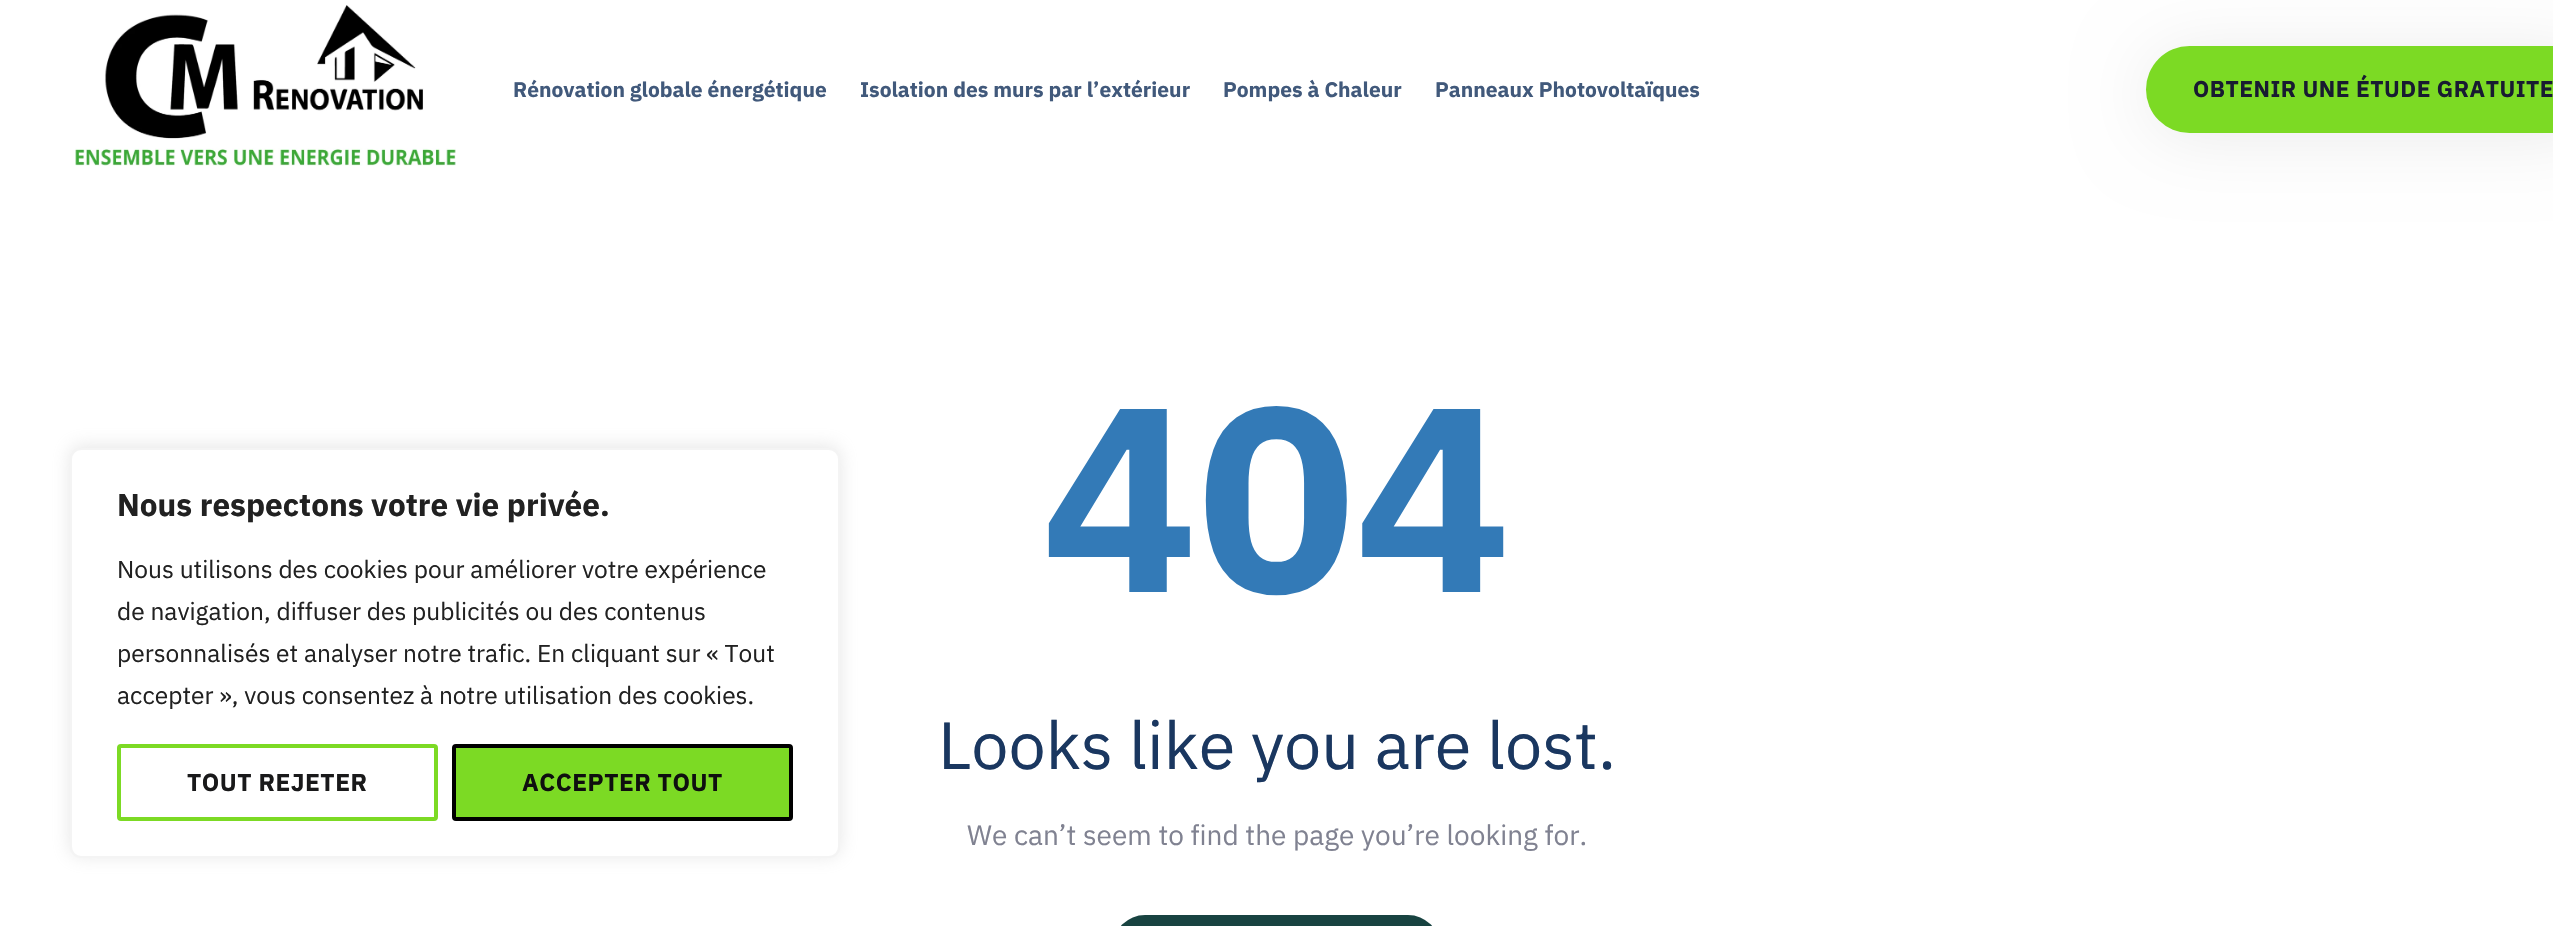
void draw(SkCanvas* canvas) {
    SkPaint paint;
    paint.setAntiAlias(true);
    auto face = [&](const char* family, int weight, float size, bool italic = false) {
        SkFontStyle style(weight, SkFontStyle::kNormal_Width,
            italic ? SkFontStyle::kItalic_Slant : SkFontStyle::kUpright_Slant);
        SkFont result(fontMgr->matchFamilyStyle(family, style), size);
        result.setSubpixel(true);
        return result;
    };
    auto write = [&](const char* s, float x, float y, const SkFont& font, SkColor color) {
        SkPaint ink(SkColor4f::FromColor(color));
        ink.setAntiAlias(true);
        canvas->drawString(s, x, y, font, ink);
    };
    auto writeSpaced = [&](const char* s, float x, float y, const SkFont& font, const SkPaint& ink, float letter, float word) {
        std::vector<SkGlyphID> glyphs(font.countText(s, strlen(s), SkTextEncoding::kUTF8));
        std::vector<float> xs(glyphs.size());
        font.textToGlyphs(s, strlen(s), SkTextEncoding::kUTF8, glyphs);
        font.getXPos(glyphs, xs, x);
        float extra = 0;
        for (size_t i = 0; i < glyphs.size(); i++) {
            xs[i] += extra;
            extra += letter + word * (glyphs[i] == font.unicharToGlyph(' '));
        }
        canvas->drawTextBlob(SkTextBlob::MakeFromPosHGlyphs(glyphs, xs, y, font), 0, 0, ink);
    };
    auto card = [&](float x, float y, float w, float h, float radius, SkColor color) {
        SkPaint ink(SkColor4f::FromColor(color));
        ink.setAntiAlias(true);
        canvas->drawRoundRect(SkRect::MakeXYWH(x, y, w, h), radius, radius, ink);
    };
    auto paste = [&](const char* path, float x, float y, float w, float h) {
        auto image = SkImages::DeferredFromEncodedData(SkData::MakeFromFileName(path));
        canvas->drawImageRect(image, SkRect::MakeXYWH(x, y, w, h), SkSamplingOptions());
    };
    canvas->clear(SK_ColorWHITE);
    paint.setColor(SkColorSetARGB(77, 172, 171, 171));
    paint.setMaskFilter(SkMaskFilter::MakeBlur(kNormal_SkBlurStyle, 9));
    canvas->drawRoundRect(SkRect::MakeXYWH(70, 446, 770, 410), 11, 11, paint);
    paint.setMaskFilter(nullptr);
    paint.setColor(SK_ColorWHITE);
    canvas->drawRoundRect(SkRect::MakeXYWH(71, 449, 768, 408), 10, 10, paint);
    paint.setStyle(SkPaint::kStroke_Style);
    paint.setStrokeWidth(2);
    paint.setColor(SkColorSetRGB(244, 244, 244));
    canvas->drawRoundRect(SkRect::MakeXYWH(71, 449, 768, 408), 10, 10, paint);
    auto kFont1 = face("IBM Plex Sans", 700, 31.5f);
    write("Nous respectons votre vie privée.", 117, 516, kFont1, SkColorSetRGB(33, 33, 33));
    auto kFont2 = face("IBM Plex Sans", 400, 24.5f);
    write("Nous utilisons des cookies pour améliorer votre expérience", 117, 578, kFont2, SkColorSetRGB(33, 33, 33));
    write("de navigation, diffuser des publicités ou des contenus", 117, 620, kFont2, SkColorSetRGB(33, 33, 33));
    write("personnalisés et analyser notre trafic. En cliquant sur « Tout", 117, 662, kFont2, SkColorSetRGB(33, 33, 33));
    write("accepter », vous consentez à notre utilisation des cookies.", 117, 704, kFont2, SkColorSetRGB(33, 33, 33));
    paint.setStrokeWidth(4);
    paint.setColor(SkColorSetRGB(124, 218, 36));
    canvas->drawRoundRect(SkRect::MakeXYWH(119, 746, 317, 73), 2, 2, paint);
    auto kFont3 = face("IBM Plex Sans", 700, 24.5f);
    paint.setStyle(SkPaint::kFill_Style);
    paint.setColor(SkColorSetRGB(25, 25, 26));
    writeSpaced("TOUT REJETER", 187, 791, kFont3, paint, 0.5f, 0);
    paint.setColor(SkColorSetRGB(124, 218, 36));
    canvas->drawRoundRect(SkRect::MakeXYWH(454, 746, 337, 73), 2, 2, paint);
    paint.setStyle(SkPaint::kStroke_Style);
    paint.setColor(SK_ColorBLACK);
    canvas->drawRoundRect(SkRect::MakeXYWH(454, 746, 337, 73), 2, 2, paint);
    paint.setStyle(SkPaint::kFill_Style);
    paint.setColor(SkColorSetRGB(15, 15, 15));
    writeSpaced("ACCEPTER TOUT", 522, 791, kFont3, paint, 0.5f, 0);
    paste("pic1.png", 75, 5, 381, 161);
    auto kFont4 = face("IBM Plex Sans", 700, 21);
    write("Rénovation globale énergétique", 513, 97, kFont4, SkColorSetRGB(65, 89, 123));
    write("Isolation des murs par l’extérieur", 860, 97, kFont4, SkColorSetRGB(65, 89, 123));
    write("Pompes à Chaleur", 1223, 97, kFont4, SkColorSetRGB(65, 89, 123));
    write("Panneaux Photovoltaïques", 1435, 97, kFont4, SkColorSetRGB(65, 89, 123));
    paint.setColor(SkColorSetARGB(20, 0, 0, 0));
    paint.setMaskFilter(SkMaskFilter::MakeBlur(kNormal_SkBlurStyle, 35));
    canvas->drawRoundRect(SkRect::MakeXYWH(2146, 51, 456, 87), 43.5f, 43.5f, paint);
    paint.setMaskFilter(nullptr);
    card(2146, 46, 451, 87, 43.5f, SkColorSetRGB(124, 218, 36));
    auto kFont5 = face("IBM Plex Sans", 700, 22.75f);
    paint.setColor(SkColorSetRGB(24, 27, 49));
    writeSpaced("OBTENIR UNE ÉTUDE GRATUITE", 2193, 97, kFont5, paint, 0.5f, 0);
    auto kFont6 = face("IBM Plex Sans", 700, 262);
    paint.setColor(SkColorSetRGB(51, 122, 183));
    writeSpaced("404", 1041, 592, kFont6, paint, -0.5f, 0);
    auto kFont7 = face("IBM Plex Sans", 400, 66.5f);
    write("Looks like you are lost.", 938, 769, kFont7, SkColorSetRGB(26, 55, 96));
    auto kFont8 = face("IBM Plex Sans", 400, 28);
    write("We can’t seem to find the page you’re looking for.", 967, 845, kFont8, SkColorSetRGB(128, 130, 145));
    card(1113, 915, 327, 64, 52.5f, SkColorSetRGB(24, 67, 65));
}
